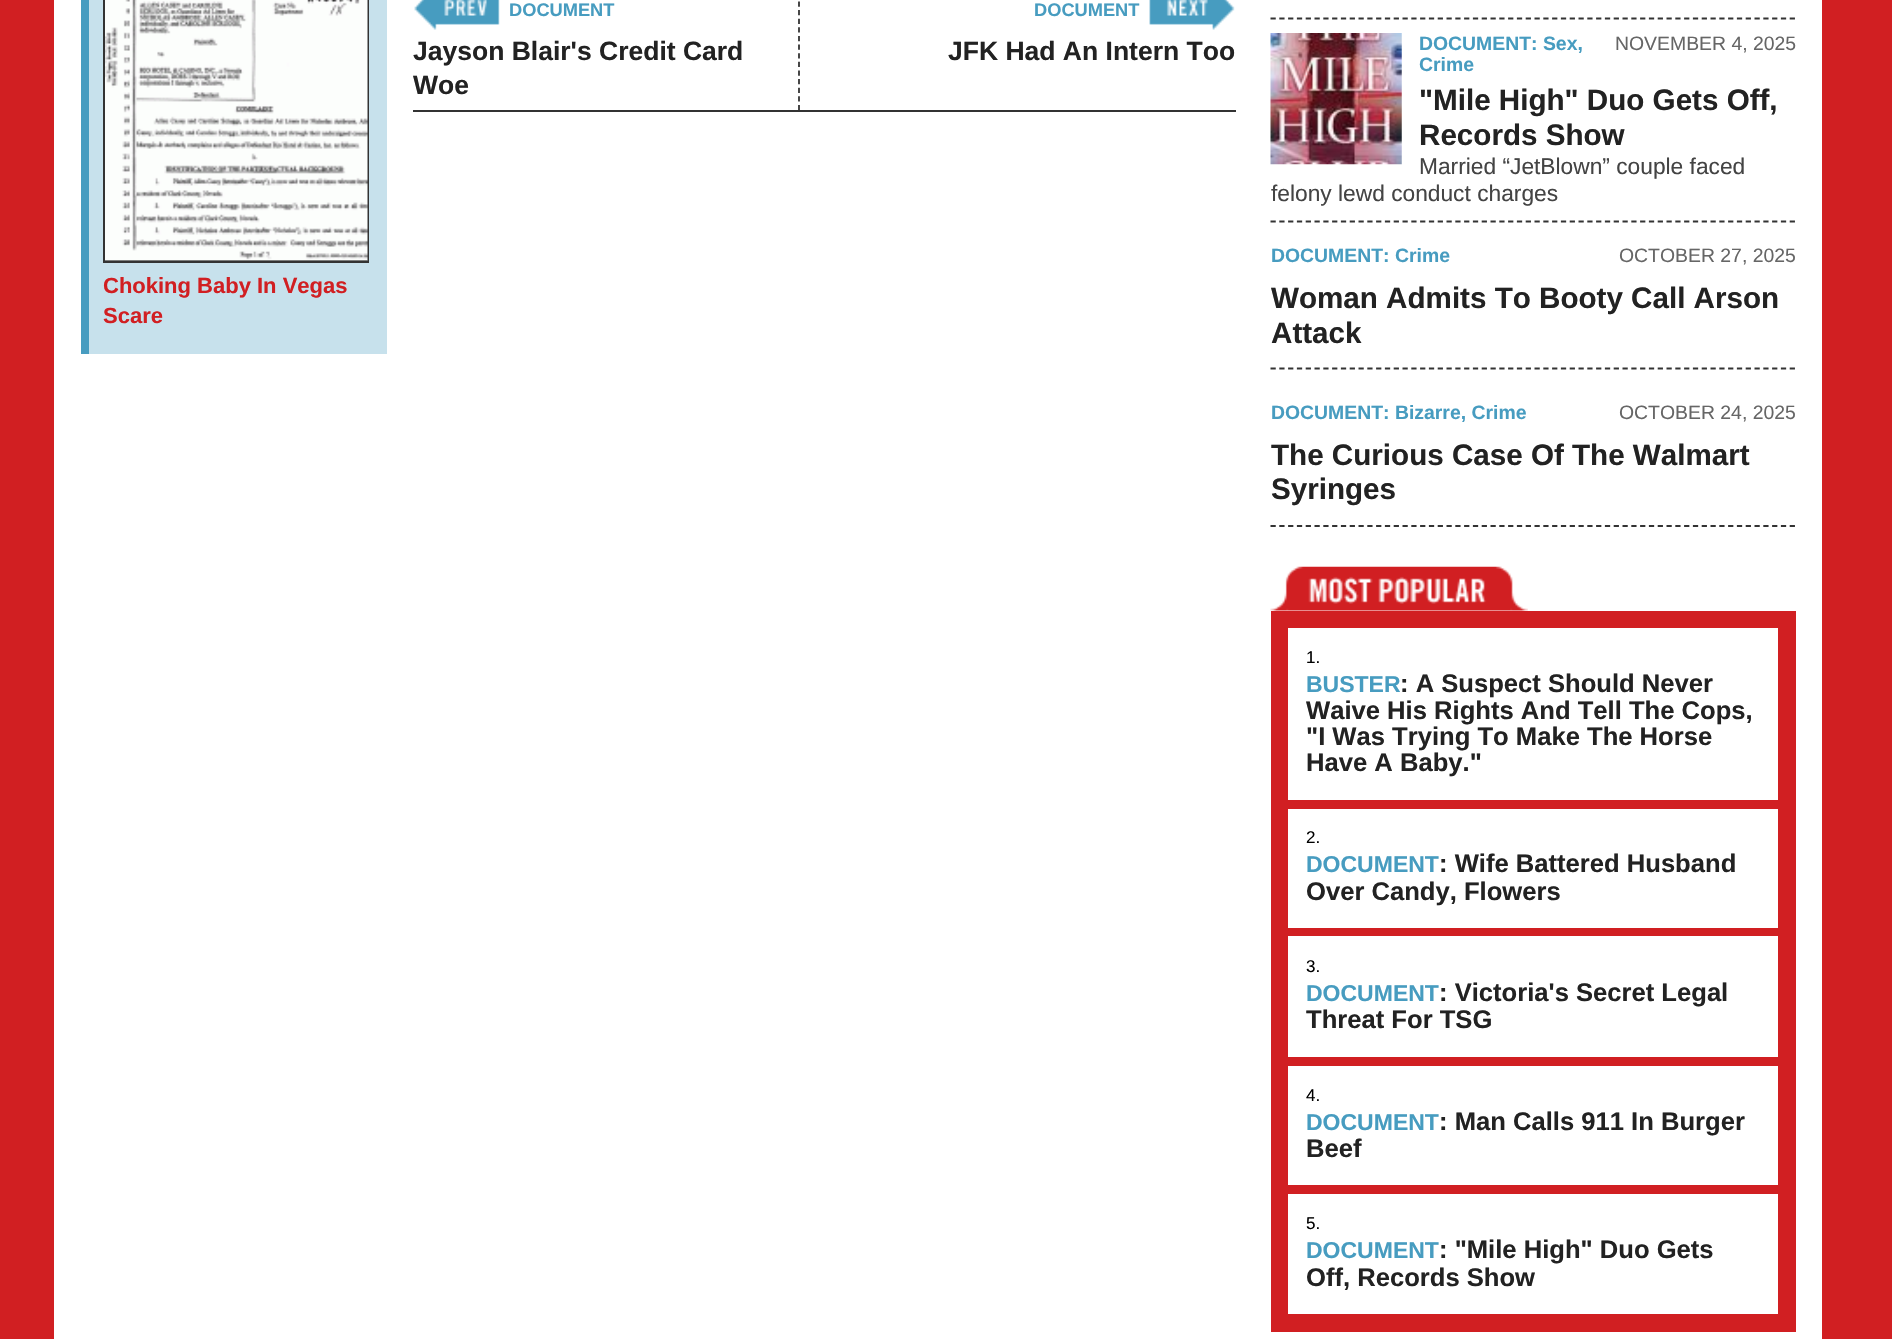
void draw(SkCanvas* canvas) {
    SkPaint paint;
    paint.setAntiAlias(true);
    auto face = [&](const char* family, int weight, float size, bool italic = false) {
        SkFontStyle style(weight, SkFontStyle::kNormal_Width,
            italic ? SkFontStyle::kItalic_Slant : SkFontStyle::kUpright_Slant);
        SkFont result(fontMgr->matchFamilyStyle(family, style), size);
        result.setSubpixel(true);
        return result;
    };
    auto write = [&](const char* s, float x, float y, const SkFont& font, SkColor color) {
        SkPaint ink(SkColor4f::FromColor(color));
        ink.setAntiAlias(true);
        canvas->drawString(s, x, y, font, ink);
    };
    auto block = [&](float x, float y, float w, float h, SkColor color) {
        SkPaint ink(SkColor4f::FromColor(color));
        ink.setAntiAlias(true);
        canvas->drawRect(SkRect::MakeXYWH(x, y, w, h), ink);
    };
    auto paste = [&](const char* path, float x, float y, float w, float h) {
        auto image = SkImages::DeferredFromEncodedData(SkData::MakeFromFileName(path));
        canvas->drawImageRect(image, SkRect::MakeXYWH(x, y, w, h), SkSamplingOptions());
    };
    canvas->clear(SkColorSetRGB(209, 31, 34));
    block(54, 0, 1768, 1339, SK_ColorWHITE);
    block(413, 110, 823, 2, SkColorSetRGB(51, 51, 51));
    paint.setStyle(SkPaint::kStroke_Style);
    paint.setStrokeWidth(1.8f);
    paint.setColor(SkColorSetRGB(51, 51, 51));
    paint.setPathEffect(SkDashPathEffect::Make({{5.25f, 3.38f}}, 0));
    canvas->drawPath(SkPathBuilder().moveTo(799, -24.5f).lineTo(799, 110).detach(), paint);
    paint.setPathEffect(nullptr);
    paste("pic1.png", 414, 0, 86, 30);
    auto kFont1 = face("Liberation Sans", 700, 18.25f);
    write("DOCUMENT", 509, 16, kFont1, SkColorSetRGB(71, 156, 192));
    auto kFont2 = face("Liberation Sans", 700, 26.5f);
    write("Jayson Blair's Credit Card", 413, 60, kFont2, SkColorSetRGB(34, 34, 34));
    write("Woe", 413, 94, kFont2, SkColorSetRGB(34, 34, 34));
    write("DOCUMENT", 1034, 16, kFont1, SkColorSetRGB(71, 156, 192));
    paste("pic2.png", 1149, 0, 86, 30);
    write("JFK Had An Intern Too", 948, 60, kFont2, SkColorSetRGB(34, 34, 34));
    block(89, 0, 298, 354, SkColorSetRGB(199, 225, 236));
    block(81, 0, 8, 354, SkColorSetRGB(71, 156, 192));
    block(105, 260, 262, 1, SK_ColorBLACK);
    paint.setStrokeWidth(2);
    canvas->drawRect(SkRect::MakeXYWH(104, -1, 264, 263), paint);
    paste("pic3.png", 105, 0, 263, 261);
    auto kFont3 = face("Liberation Sans", 700, 22);
    write("Choking Baby In Vegas", 103, 293, kFont3, SkColorSetRGB(209, 31, 34));
    write("Scare", 103, 323, kFont3, SkColorSetRGB(209, 31, 34));
    paint.setStrokeWidth(1.8f);
    paint.setPathEffect(SkDashPathEffect::Make({{5.25f, 3.55f}}, 0));
    canvas->drawPath(SkPathBuilder().moveTo(1270.5f, 18.5f).lineTo(1795.5f, 18.5f).detach(), paint);
    paint.setPathEffect(nullptr);
    paint.setPathEffect(SkDashPathEffect::Make({{5.25f, 3.55f}}, 0));
    canvas->drawPath(SkPathBuilder().moveTo(1270.5f, 221.5f).lineTo(1795.5f, 221.5f).detach(), paint);
    paint.setPathEffect(nullptr);
    paste("pic4.png", 1270, 33, 132, 132);
    auto kFont4 = face("Liberation Sans", 700, 19.4f);
    write("DOCUMENT: Sex,", 1419, 50, kFont4, SkColorSetRGB(71, 156, 192));
    write("Crime", 1419, 71, kFont4, SkColorSetRGB(71, 156, 192));
    auto kFont5 = face("Liberation Sans", 400, 19.4f);
    write("NOVEMBER 4, 2025", 1615, 50, kFont5, SkColorSetRGB(102, 102, 102));
    auto kFont6 = face("Liberation Sans", 700, 29.6f);
    write("\"Mile High\" Duo Gets Off,", 1419, 110, kFont6, SkColorSetRGB(34, 34, 34));
    write("Records Show", 1419, 145, kFont6, SkColorSetRGB(34, 34, 34));
    auto kFont7 = face("Liberation Sans", 400, 22.75f);
    write("Married “JetBlown” couple faced", 1419, 174, kFont7, SkColorSetRGB(68, 68, 68));
    write("felony lewd conduct charges", 1271, 201, kFont7, SkColorSetRGB(68, 68, 68));
    paint.setPathEffect(SkDashPathEffect::Make({{5.25f, 3.55f}}, 0));
    canvas->drawPath(SkPathBuilder().moveTo(1270.5f, 368.5f).lineTo(1795.5f, 368.5f).detach(), paint);
    paint.setPathEffect(nullptr);
    write("DOCUMENT: Crime", 1271, 262, kFont4, SkColorSetRGB(71, 156, 192));
    write("OCTOBER 27, 2025", 1619, 262, kFont5, SkColorSetRGB(102, 102, 102));
    write("Woman Admits To Booty Call Arson", 1271, 308, kFont6, SkColorSetRGB(34, 34, 34));
    write("Attack", 1271, 343, kFont6, SkColorSetRGB(34, 34, 34));
    paint.setPathEffect(SkDashPathEffect::Make({{5.25f, 3.55f}}, 0));
    canvas->drawPath(SkPathBuilder().moveTo(1270.5f, 526).lineTo(1795.5f, 526).detach(), paint);
    paint.setPathEffect(nullptr);
    write("DOCUMENT: Bizarre, Crime", 1271, 419, kFont4, SkColorSetRGB(71, 156, 192));
    write("OCTOBER 24, 2025", 1619, 419, kFont5, SkColorSetRGB(102, 102, 102));
    write("The Curious Case Of The Walmart", 1271, 465, kFont6, SkColorSetRGB(34, 34, 34));
    write("Syringes", 1271, 499, kFont6, SkColorSetRGB(34, 34, 34));
    paste("pic5.png", 1270, 566, 258, 45);
    block(1271, 611, 525, 721, SkColorSetRGB(209, 31, 34));
    block(1288, 628, 490, 172, SK_ColorWHITE);
    auto kFont8 = face("Liberation Sans", 400, 17);
    write("1.", 1306, 663, kFont8, SK_ColorBLACK);
    auto kFont9 = face("Liberation Sans", 700, 23);
    write("BUSTER", 1306, 692, kFont9, SkColorSetRGB(71, 156, 192));
    auto kFont10 = face("Liberation Sans", 700, 25.6f);
    write(": A Suspect Should Never", 1400, 692, kFont10, SkColorSetRGB(34, 34, 34));
    write("Waive His Rights And Tell The Cops,", 1306, 719, kFont10, SkColorSetRGB(34, 34, 34));
    write("\"I Was Trying To Make The Horse", 1306, 745, kFont10, SkColorSetRGB(34, 34, 34));
    write("Have A Baby.\"", 1306, 771, kFont10, SkColorSetRGB(34, 34, 34));
    block(1288, 809, 490, 119, SK_ColorWHITE);
    write("2.", 1306, 843, kFont8, SK_ColorBLACK);
    write("DOCUMENT", 1306, 872, kFont9, SkColorSetRGB(71, 156, 192));
    write(": Wife Battered Husband", 1439, 872, kFont10, SkColorSetRGB(34, 34, 34));
    write("Over Candy, Flowers", 1306, 900, kFont10, SkColorSetRGB(34, 34, 34));
    block(1288, 936, 490, 121, SK_ColorWHITE);
    write("3.", 1306, 972, kFont8, SK_ColorBLACK);
    write("DOCUMENT", 1306, 1001, kFont9, SkColorSetRGB(71, 156, 192));
    write(": Victoria's Secret Legal", 1439, 1001, kFont10, SkColorSetRGB(34, 34, 34));
    write("Threat For TSG", 1306, 1028, kFont10, SkColorSetRGB(34, 34, 34));
    block(1288, 1066, 490, 119, SK_ColorWHITE);
    write("4.", 1306, 1101, kFont8, SK_ColorBLACK);
    write("DOCUMENT", 1306, 1130, kFont9, SkColorSetRGB(71, 156, 192));
    write(": Man Calls 911 In Burger", 1439, 1130, kFont10, SkColorSetRGB(34, 34, 34));
    write("Beef", 1306, 1157, kFont10, SkColorSetRGB(34, 34, 34));
    block(1288, 1194, 490, 120, SK_ColorWHITE);
    write("5.", 1306, 1229, kFont8, SK_ColorBLACK);
    write("DOCUMENT", 1306, 1258, kFont9, SkColorSetRGB(71, 156, 192));
    write(": \"Mile High\" Duo Gets", 1439, 1258, kFont10, SkColorSetRGB(34, 34, 34));
    write("Off, Records Show", 1306, 1286, kFont10, SkColorSetRGB(34, 34, 34));
}
